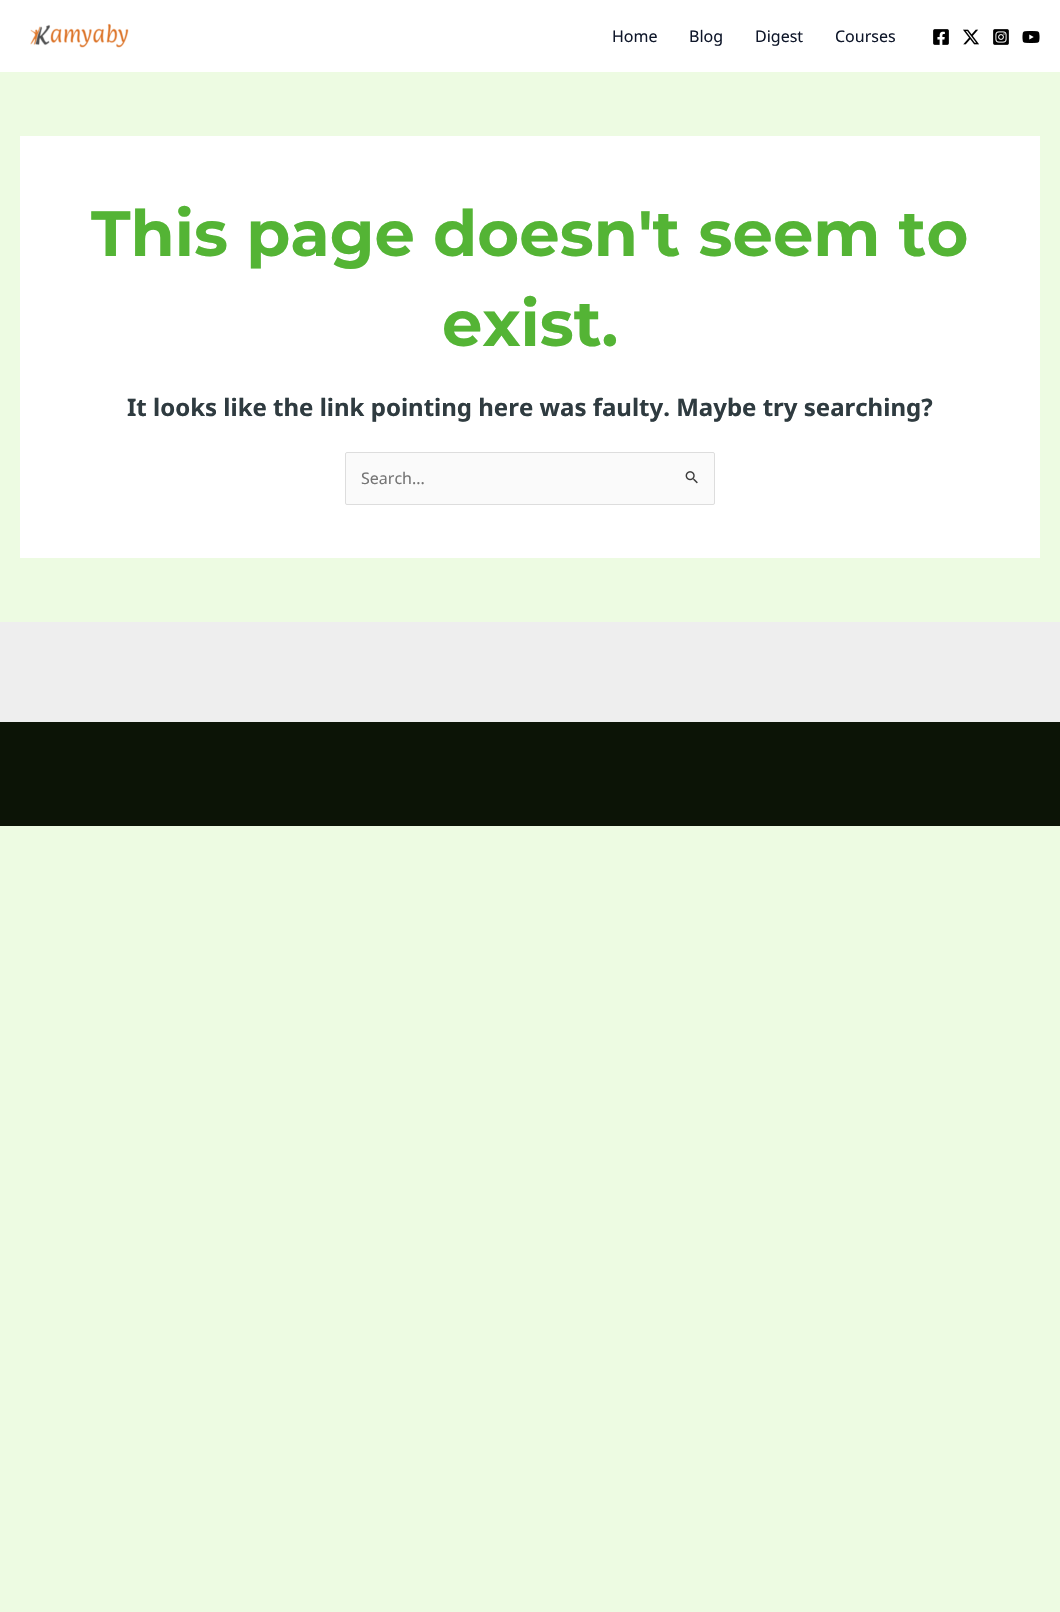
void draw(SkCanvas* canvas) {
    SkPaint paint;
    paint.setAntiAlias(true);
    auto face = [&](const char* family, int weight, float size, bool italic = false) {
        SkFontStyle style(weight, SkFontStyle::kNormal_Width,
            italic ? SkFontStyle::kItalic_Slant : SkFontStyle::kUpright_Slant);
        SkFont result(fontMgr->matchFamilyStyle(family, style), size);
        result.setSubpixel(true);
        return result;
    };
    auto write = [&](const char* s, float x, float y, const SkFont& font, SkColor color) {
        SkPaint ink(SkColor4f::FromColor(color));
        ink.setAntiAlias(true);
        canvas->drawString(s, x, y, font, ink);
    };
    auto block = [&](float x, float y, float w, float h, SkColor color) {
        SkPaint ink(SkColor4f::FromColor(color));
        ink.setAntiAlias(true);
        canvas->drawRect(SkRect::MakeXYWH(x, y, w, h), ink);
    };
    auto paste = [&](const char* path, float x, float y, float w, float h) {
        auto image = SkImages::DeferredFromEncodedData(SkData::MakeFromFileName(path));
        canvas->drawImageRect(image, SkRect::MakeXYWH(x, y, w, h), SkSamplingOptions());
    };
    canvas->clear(SkColorSetRGB(237, 251, 226));
    block(0, 0, 1060, 72, SK_ColorWHITE);
    paste("pic1.png", 30, 23, 99, 25);
    auto kFont1 = face("Noto Sans", 400, 16);
    write("Home", 612, 42, kFont1, SkColorSetRGB(15, 23, 42));
    write("Blog", 689, 42, kFont1, SkColorSetRGB(15, 23, 42));
    write("Digest", 755, 42, kFont1, SkColorSetRGB(15, 23, 42));
    write("Courses", 835, 42, kFont1, SkColorSetRGB(15, 23, 42));
    paste("pic2.png", 933, 29, 16, 16);
    paste("pic3.png", 963, 29, 16, 16);
    paste("pic4.png", 993, 29, 16, 16);
    paste("pic5.png", 1022, 31, 18, 12);
    block(20, 136, 1020, 422, SK_ColorWHITE);
    auto kFont2 = face("Montserrat", 100, 64);
    write("This page doesn't seem to", 91, 256, kFont2, SkColorSetRGB(84, 180, 53));
    write("exist.", 442, 346, kFont2, SkColorSetRGB(84, 180, 53));
    auto kFont3 = face("Noto Sans", 700, 24);
    write("It looks like the link pointing here was faulty. Maybe try searching?", 127, 416, kFont3, SkColorSetRGB(47, 59, 64));
    paint.setColor(SkColorSetRGB(250, 250, 250));
    canvas->drawRoundRect(SkRect::MakeXYWH(345.5f, 452.5f, 369, 52), 1.5f, 1.5f, paint);
    paint.setStyle(SkPaint::kStroke_Style);
    paint.setStrokeWidth(1);
    paint.setColor(SkColorSetRGB(221, 221, 221));
    canvas->drawRoundRect(SkRect::MakeXYWH(345.5f, 452.5f, 369, 52), 1.5f, 1.5f, paint);
    write("Search...", 361, 484, kFont1, SkColorSetRGB(117, 117, 117));
    paste("pic6.png", 685, 471, 13, 13);
    block(0, 622, 1060, 100, SkColorSetRGB(238, 238, 238));
    block(0, 722, 1060, 104, SkColorSetRGB(12, 20, 6));
}
